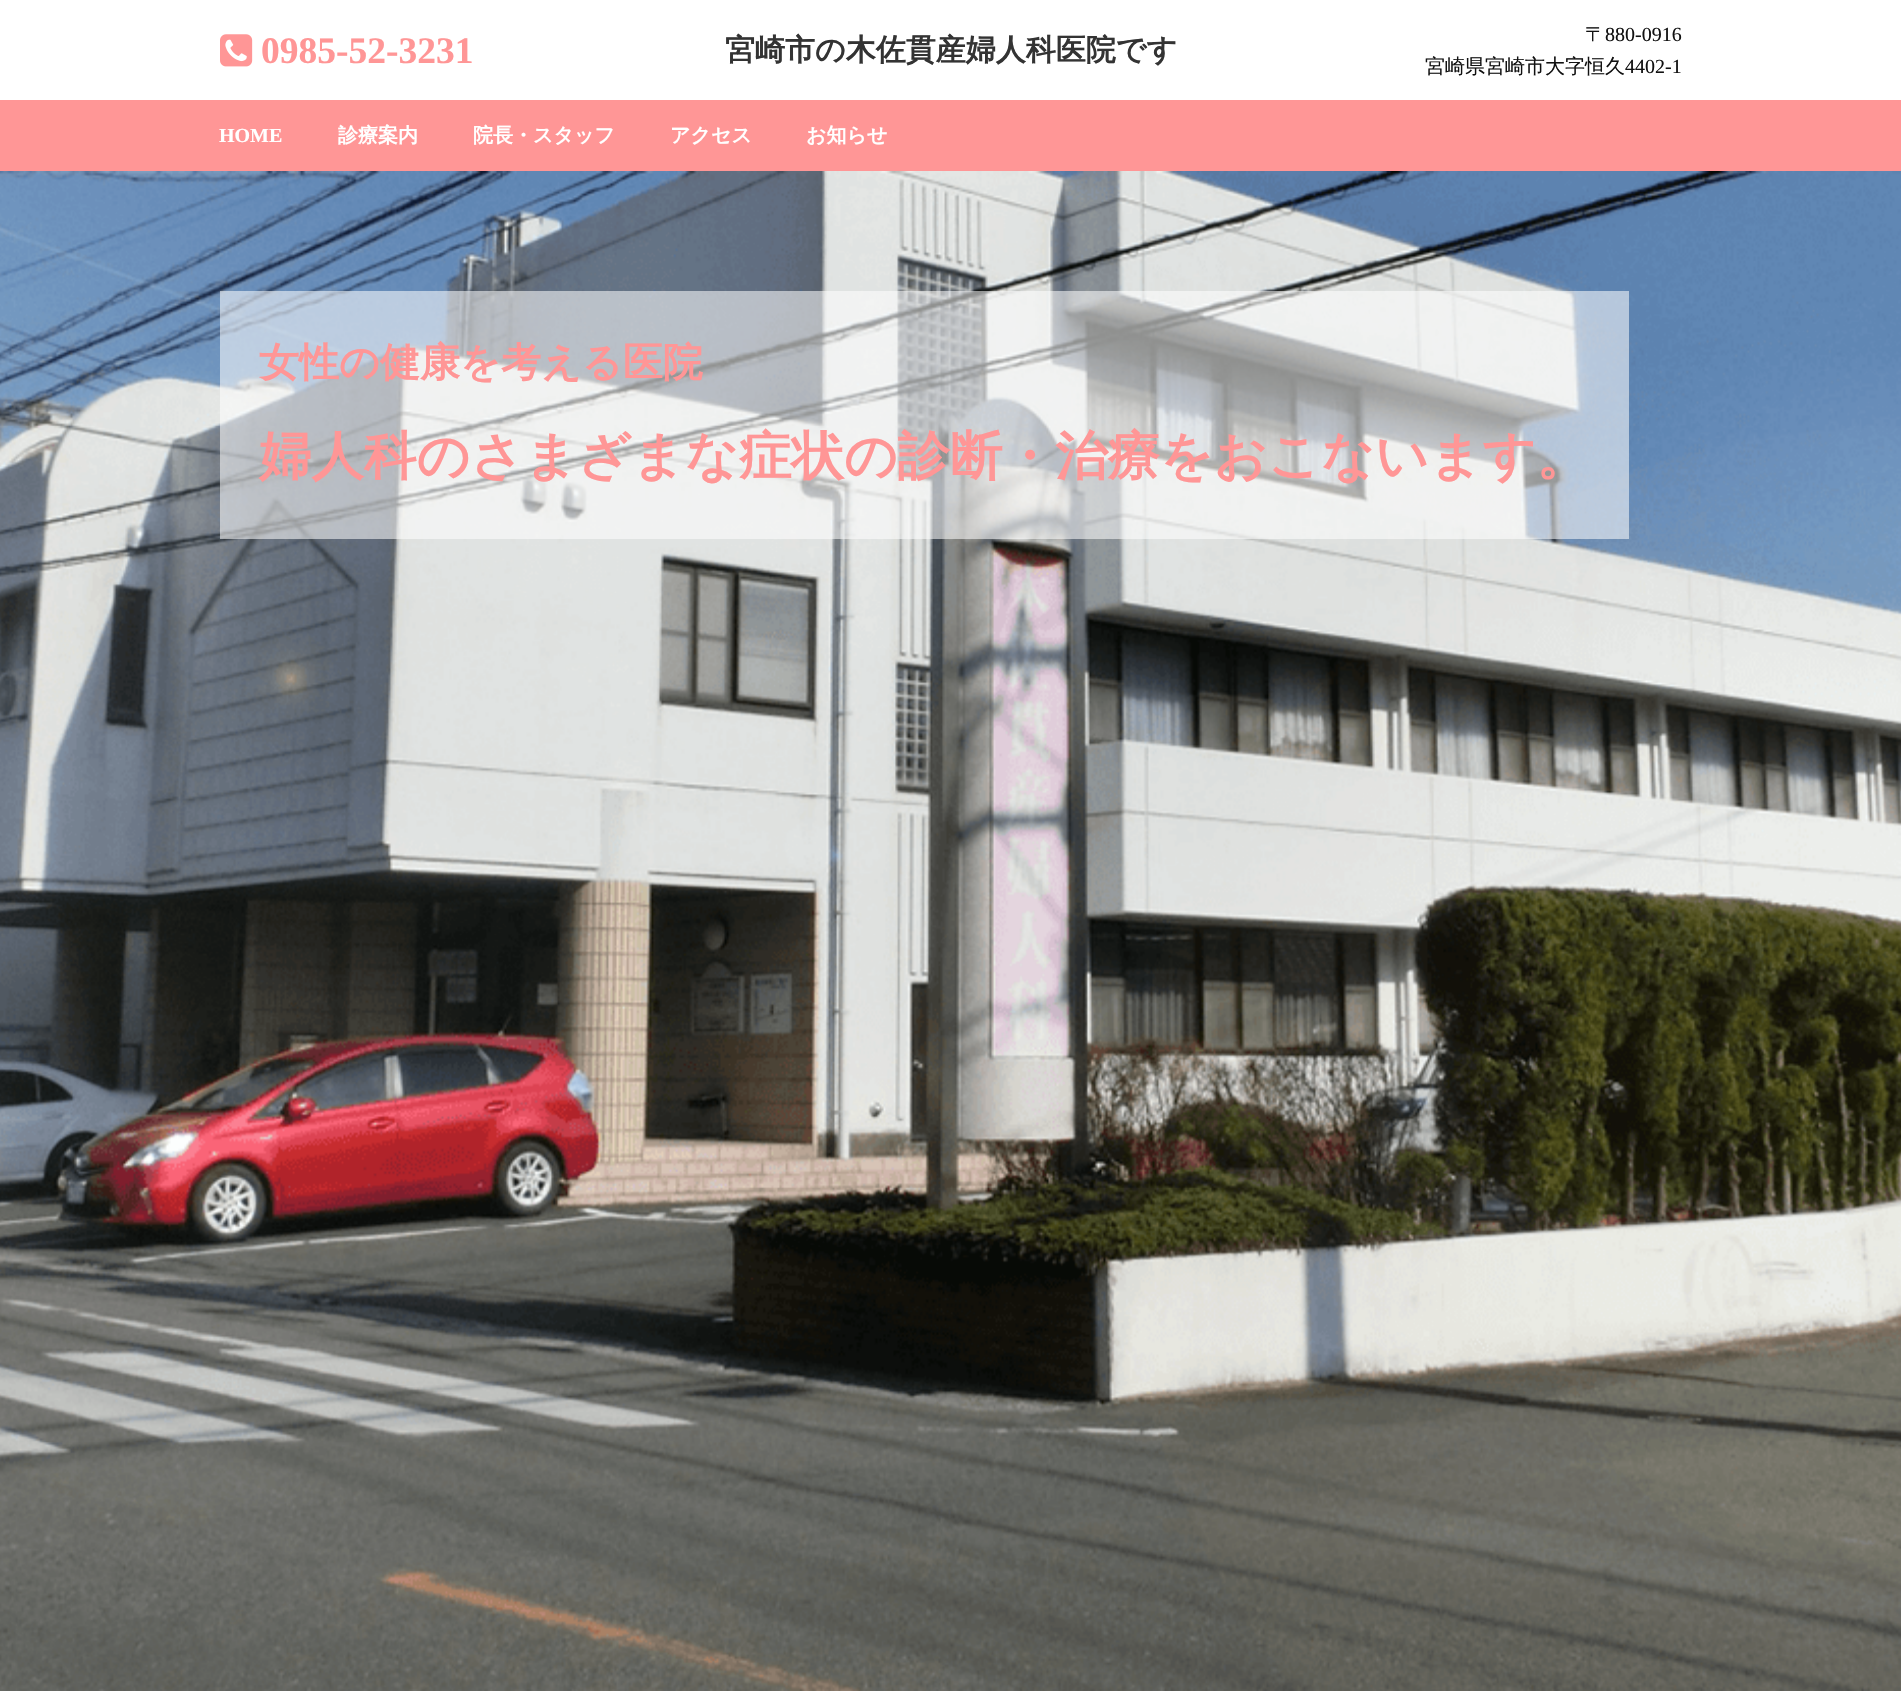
void draw(SkCanvas* canvas) {
    SkPaint paint;
    paint.setAntiAlias(true);
    auto face = [&](const char* family, int weight, float size, bool italic = false) {
        SkFontStyle style(weight, SkFontStyle::kNormal_Width,
            italic ? SkFontStyle::kItalic_Slant : SkFontStyle::kUpright_Slant);
        SkFont result(fontMgr->matchFamilyStyle(family, style), size);
        result.setSubpixel(true);
        return result;
    };
    auto write = [&](const char* s, float x, float y, const SkFont& font, SkColor color) {
        SkPaint ink(SkColor4f::FromColor(color));
        ink.setAntiAlias(true);
        canvas->drawString(s, x, y, font, ink);
    };
    auto block = [&](float x, float y, float w, float h, SkColor color) {
        SkPaint ink(SkColor4f::FromColor(color));
        ink.setAntiAlias(true);
        canvas->drawRect(SkRect::MakeXYWH(x, y, w, h), ink);
    };
    auto paste = [&](const char* path, float x, float y, float w, float h) {
        auto image = SkImages::DeferredFromEncodedData(SkData::MakeFromFileName(path));
        canvas->drawImageRect(image, SkRect::MakeXYWH(x, y, w, h), SkSamplingOptions());
    };
    canvas->clear(SK_ColorWHITE);
    paste("pic1.png", 220, 34, 33, 33);
    auto kFont1 = face("Liberation Serif", 700, 37.5f);
    write("0985-52-3231", 261, 63, kFont1, SkColorSetRGB(255, 150, 150));
    auto kFont2 = face("WenQuanYi Zen Hei", 700, 30);
    write("宮崎市の木佐貫産婦人科医院です", 725, 60, kFont2, SkColorSetRGB(51, 51, 51));
    auto kFont3 = face("WenQuanYi Zen Hei", 500, 20);
    write("〒", 1585, 41, kFont3, SkColorSetRGB(17, 17, 17));
    auto kFont4 = face("Liberation Serif", 400, 20);
    write("880-0916", 1605, 41, kFont4, SkColorSetRGB(17, 17, 17));
    write("宮崎県宮崎市大字恒久", 1425, 73, kFont3, SkColorSetRGB(17, 17, 17));
    write("4402-1", 1625, 73, kFont4, SkColorSetRGB(17, 17, 17));
    block(0, 100, 1901, 71, SkColorSetRGB(255, 150, 150));
    auto kFont5 = face("Liberation Serif", 700, 20);
    write("HOME", 219, 142, kFont5, SK_ColorWHITE);
    auto kFont6 = face("WenQuanYi Zen Hei", 700, 20);
    write("診療案内", 338, 142, kFont6, SK_ColorWHITE);
    write("院長・スタッフ", 473, 142, kFont6, SK_ColorWHITE);
    write("アクセス", 670, 142, kFont6, SK_ColorWHITE);
    write("お知らせ", 806, 142, kFont6, SK_ColorWHITE);
    paste("pic2.png", 0, 171, 1901, 1520);
    block(220, 291, 1409, 248, SkColorSetARGB(140, 255, 255, 255));
    auto kFont7 = face("WenQuanYi Zen Hei", 700, 40);
    write("女性の健康を考える医院", 259, 376, kFont7, SkColorSetRGB(255, 150, 150));
    auto kFont8 = face("WenQuanYi Zen Hei", 700, 52.5f);
    write("婦人科のさまざまな症状の診断・治療をおこないます。", 259, 474, kFont8, SkColorSetRGB(255, 150, 150));
}
